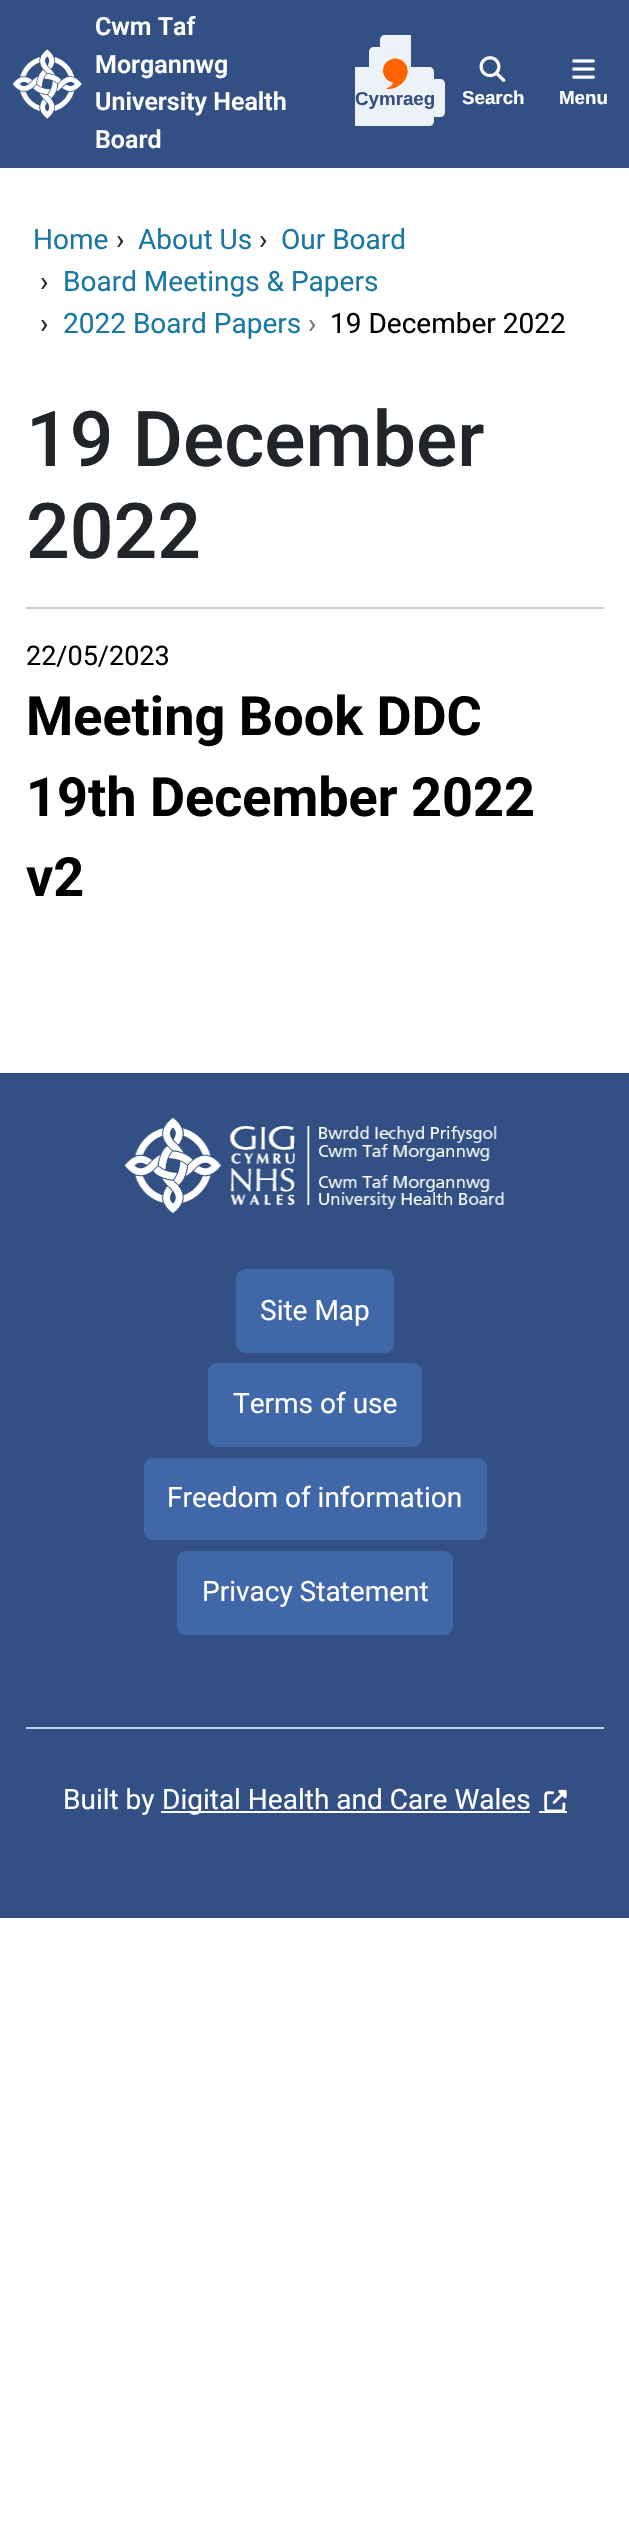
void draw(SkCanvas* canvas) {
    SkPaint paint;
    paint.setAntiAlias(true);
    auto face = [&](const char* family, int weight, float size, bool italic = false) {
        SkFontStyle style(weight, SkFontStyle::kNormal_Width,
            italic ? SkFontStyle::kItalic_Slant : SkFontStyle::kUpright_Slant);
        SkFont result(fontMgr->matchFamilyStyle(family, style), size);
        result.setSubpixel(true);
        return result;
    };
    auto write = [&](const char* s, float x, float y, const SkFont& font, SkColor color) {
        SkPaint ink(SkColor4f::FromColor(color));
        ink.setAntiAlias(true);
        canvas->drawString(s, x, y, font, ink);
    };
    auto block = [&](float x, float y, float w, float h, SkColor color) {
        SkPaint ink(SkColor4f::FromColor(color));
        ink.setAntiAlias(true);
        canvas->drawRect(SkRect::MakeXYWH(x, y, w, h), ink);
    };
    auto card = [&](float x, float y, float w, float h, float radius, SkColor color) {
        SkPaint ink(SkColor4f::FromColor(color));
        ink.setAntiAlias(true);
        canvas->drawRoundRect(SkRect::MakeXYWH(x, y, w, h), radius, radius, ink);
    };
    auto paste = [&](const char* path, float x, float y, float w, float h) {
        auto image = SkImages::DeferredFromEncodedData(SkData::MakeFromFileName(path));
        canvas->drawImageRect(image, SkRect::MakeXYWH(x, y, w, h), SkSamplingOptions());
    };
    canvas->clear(SK_ColorWHITE);
    block(0, 0, 629, 168, SkColorSetRGB(50, 80, 131));
    paste("pic1.png", 12, 49, 70, 70);
    auto kFont1 = face("Roboto", 600, 25);
    write("Cwm Taf", 95, 35, kFont1, SK_ColorWHITE);
    write("Morgannwg", 95, 73, kFont1, SK_ColorWHITE);
    write("University Health", 95, 110, kFont1, SK_ColorWHITE);
    write("Board", 95, 148, kFont1, SK_ColorWHITE);
    paint.setColor(SkColorSetRGB(237, 241, 248));
    canvas->drawPath(SkPathBuilder().moveTo(385, 35).lineTo(411, 35).lineTo(411, 110).lineTo(385, 110).cubicTo(382, 110, 380, 108, 380, 105).lineTo(380, 40).cubicTo(380, 37, 382, 35, 385, 35).close().detach(), paint);
    canvas->drawPath(SkPathBuilder().moveTo(355, 67).lineTo(429, 67).cubicTo(432, 67, 434, 69, 434, 72).lineTo(434, 121).cubicTo(434, 124, 432, 126, 429, 126).lineTo(355, 126).close().detach(), paint);
    canvas->drawPath(SkPathBuilder().moveTo(374, 47).lineTo(411, 47).lineTo(411, 102).lineTo(374, 102).cubicTo(371, 102, 369, 100, 369, 97).lineTo(369, 52).cubicTo(369, 49, 371, 47, 374, 47).close().detach(), paint);
    canvas->drawPath(SkPathBuilder().moveTo(355, 79).lineTo(440, 79).cubicTo(443, 79, 445, 81, 445, 84).lineTo(445, 112).cubicTo(445, 115, 443, 117, 440, 117).lineTo(355, 117).close().detach(), paint);
    paste("pic2.png", 383, 58, 25, 31);
    auto kFont2 = face("Liberation Sans", 700, 18.75f);
    write("Cymraeg", 355, 105, kFont2, SkColorSetRGB(50, 80, 131));
    paste("pic3.png", 479, 56, 27, 26);
    write("Search", 462, 104, kFont2, SK_ColorWHITE);
    paste("pic4.png", 572, 59, 23, 20);
    write("Menu", 559, 104, kFont2, SK_ColorWHITE);
    auto kFont3 = face("Roboto", 400, 28);
    write("Home", 33, 249, kFont3, SkColorSetRGB(25, 120, 163));
    write("›", 116, 249, kFont3, SkColorSetRGB(33, 37, 41));
    write("About Us", 138, 249, kFont3, SkColorSetRGB(25, 120, 163));
    write("›", 259, 249, kFont3, SkColorSetRGB(33, 37, 41));
    write("Our Board", 281, 249, kFont3, SkColorSetRGB(25, 120, 163));
    write("›", 40, 291, kFont3, SkColorSetRGB(33, 37, 41));
    write("Board Meetings & Papers", 63, 291, kFont3, SkColorSetRGB(25, 120, 163));
    write("›", 40, 333, kFont3, SkColorSetRGB(33, 37, 41));
    write("2022 Board Papers", 63, 333, kFont3, SkColorSetRGB(25, 120, 163));
    write("›", 308, 333, kFont3, SkColorSetRGB(108, 117, 125));
    write("19 December 2022", 330, 333, kFont3, SK_ColorBLACK);
    auto kFont4 = face("Roboto", 500, 77);
    write("19 December", 26, 466, kFont4, SkColorSetRGB(33, 37, 41));
    write("2022", 26, 558, kFont4, SkColorSetRGB(33, 37, 41));
    block(26, 607, 578, 2, SkColorSetRGB(204, 204, 204));
    auto kFont5 = face("Roboto", 400, 27);
    write("22/05/2023", 26, 665, kFont5, SK_ColorBLACK);
    auto kFont6 = face("Roboto", 700, 54);
    write("Meeting Book DDC", 26, 735, kFont6, SK_ColorBLACK);
    write("19th December 2022", 26, 816, kFont6, SK_ColorBLACK);
    write("v2", 26, 896, kFont6, SK_ColorBLACK);
    block(0, 1073, 629, 845, SkColorSetRGB(50, 80, 131));
    paste("pic5.png", 124, 1118, 380, 95);
    card(236, 1269, 158, 84, 9, SkColorSetRGB(64, 103, 168));
    write("Site Map", 260, 1320, kFont3, SK_ColorWHITE);
    card(208, 1363, 214, 84, 9, SkColorSetRGB(64, 103, 168));
    write("Terms of use", 233, 1413, kFont3, SK_ColorWHITE);
    card(144, 1458, 343, 82, 9, SkColorSetRGB(64, 103, 168));
    write("Freedom of information", 167, 1507, kFont3, SK_ColorWHITE);
    card(177, 1551, 276, 84, 9, SkColorSetRGB(64, 103, 168));
    write("Privacy Statement", 202, 1601, kFont3, SK_ColorWHITE);
    block(26, 1726, 578, 1, SkColorSetRGB(50, 78, 124));
    block(26, 1727, 578, 2, SkColorSetRGB(189, 215, 234));
    write("Built by", 63, 1809, kFont3, SK_ColorWHITE);
    block(161, 1811, 369, 2, SK_ColorWHITE);
    write("Digital Health and Care Wales", 162, 1809, kFont3, SK_ColorWHITE);
    block(539, 1811, 28, 2, SK_ColorWHITE);
    paste("pic6.png", 544, 1789, 23, 22);
}
